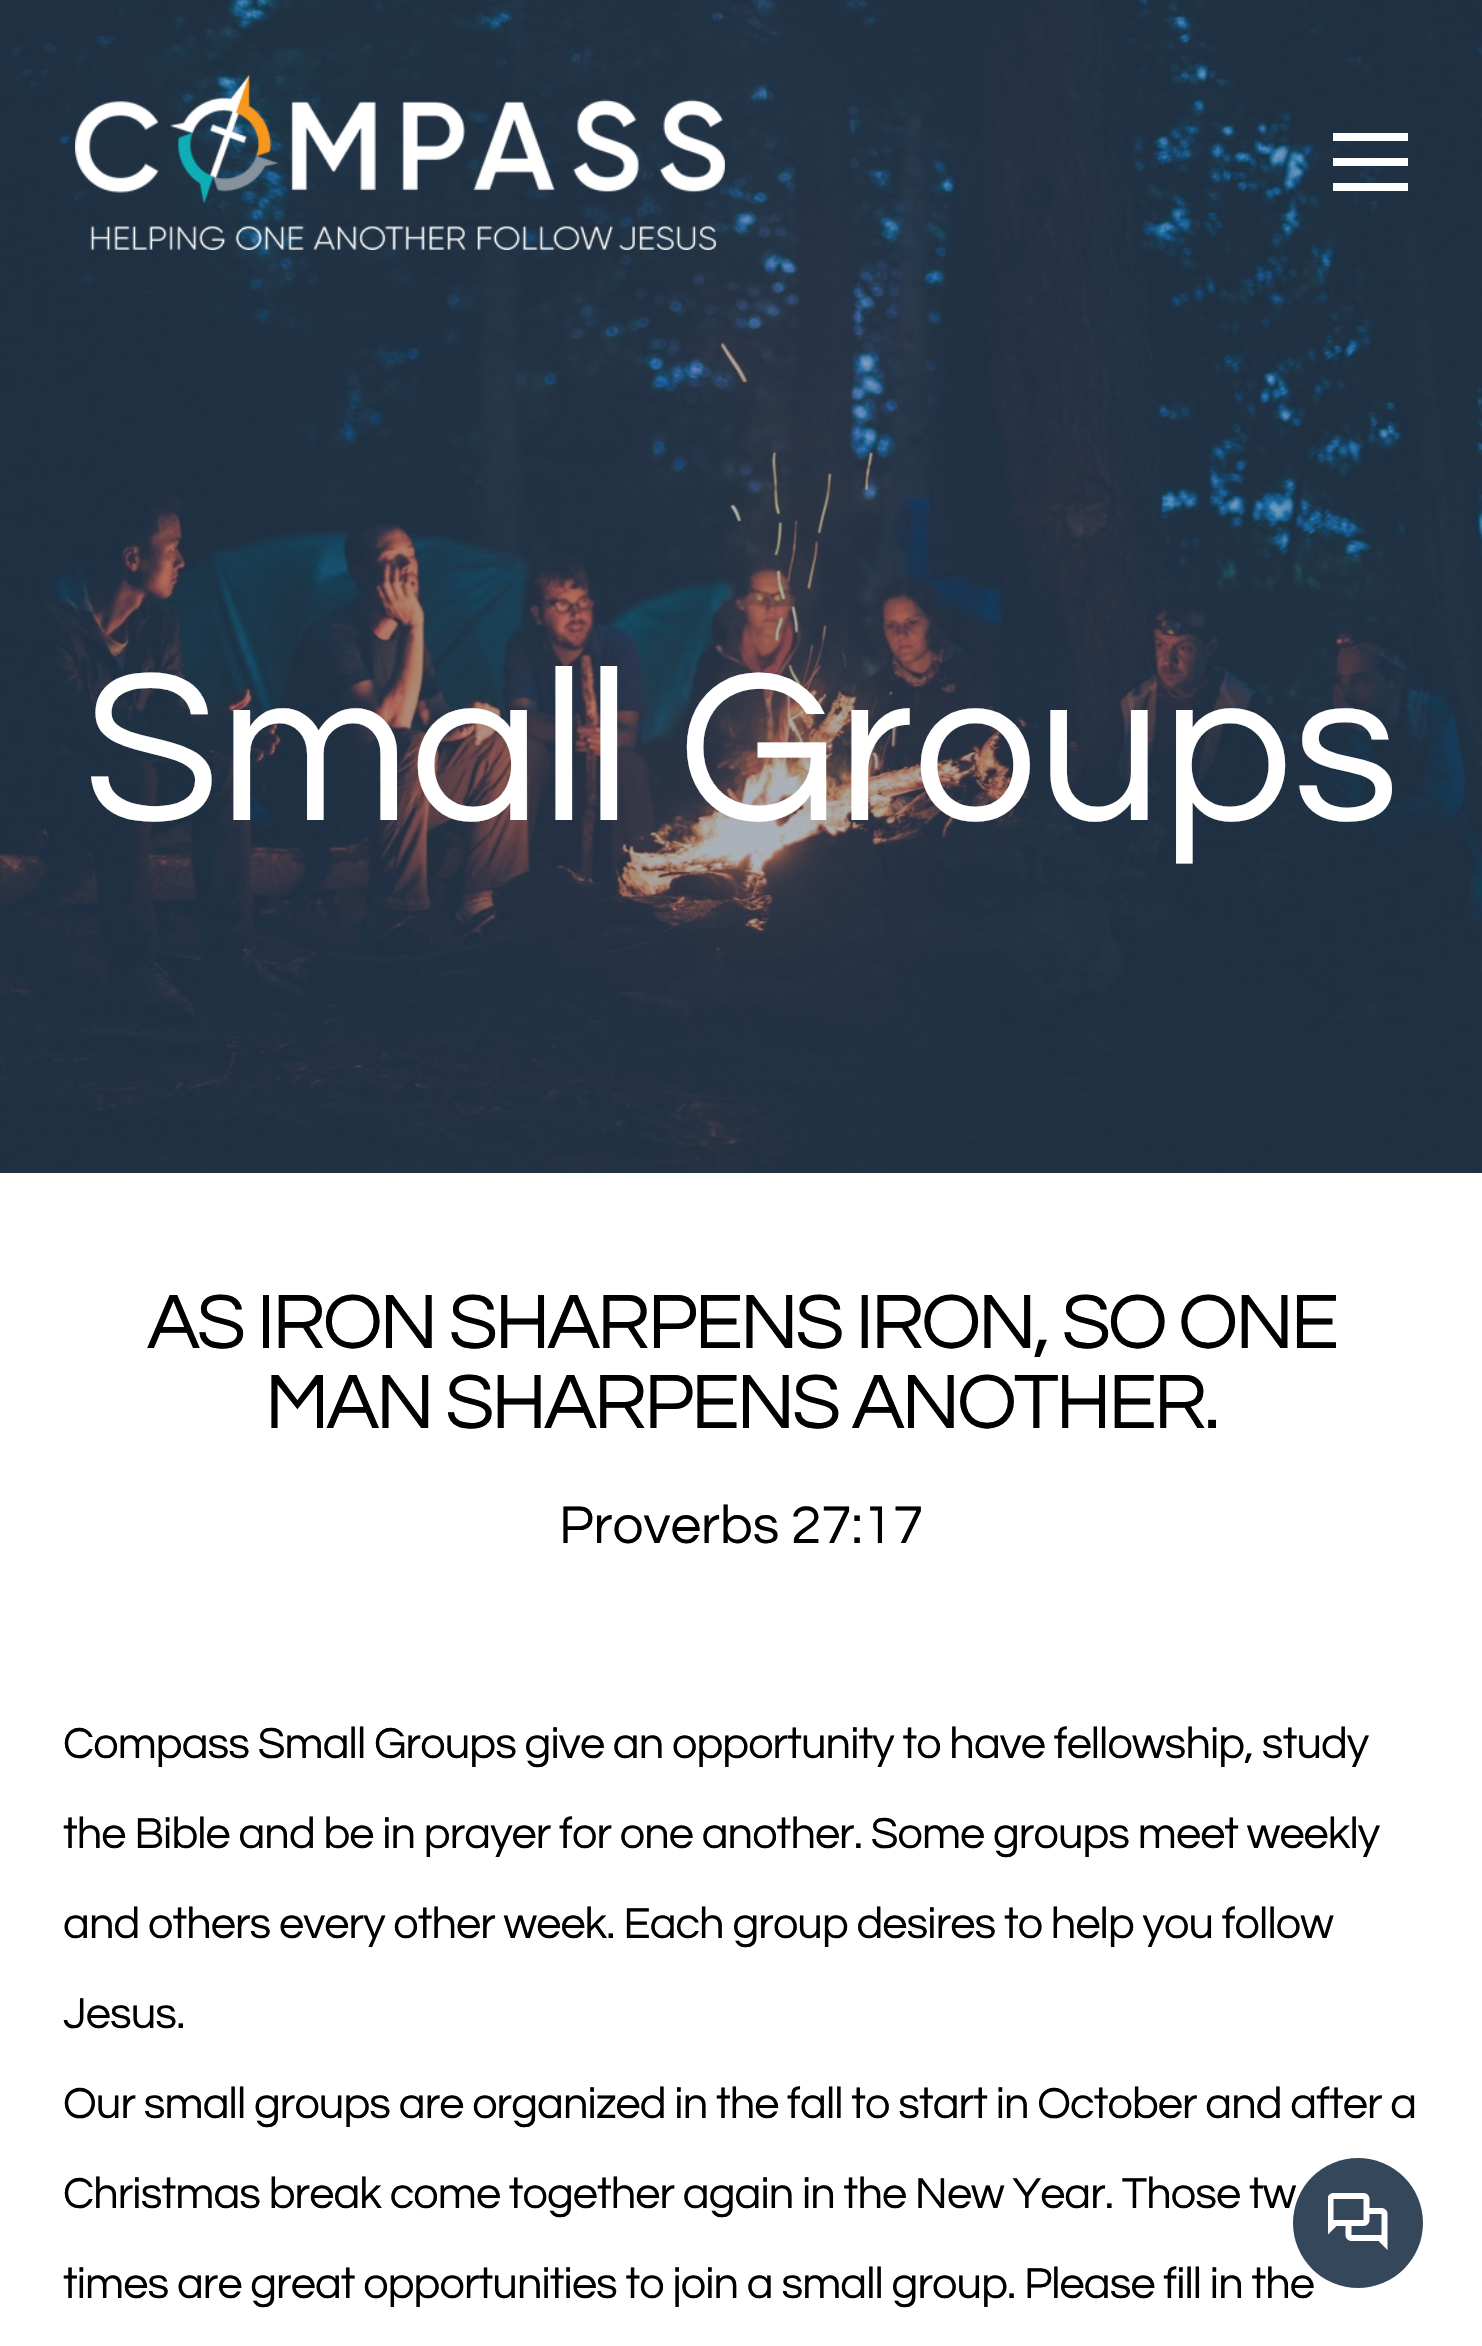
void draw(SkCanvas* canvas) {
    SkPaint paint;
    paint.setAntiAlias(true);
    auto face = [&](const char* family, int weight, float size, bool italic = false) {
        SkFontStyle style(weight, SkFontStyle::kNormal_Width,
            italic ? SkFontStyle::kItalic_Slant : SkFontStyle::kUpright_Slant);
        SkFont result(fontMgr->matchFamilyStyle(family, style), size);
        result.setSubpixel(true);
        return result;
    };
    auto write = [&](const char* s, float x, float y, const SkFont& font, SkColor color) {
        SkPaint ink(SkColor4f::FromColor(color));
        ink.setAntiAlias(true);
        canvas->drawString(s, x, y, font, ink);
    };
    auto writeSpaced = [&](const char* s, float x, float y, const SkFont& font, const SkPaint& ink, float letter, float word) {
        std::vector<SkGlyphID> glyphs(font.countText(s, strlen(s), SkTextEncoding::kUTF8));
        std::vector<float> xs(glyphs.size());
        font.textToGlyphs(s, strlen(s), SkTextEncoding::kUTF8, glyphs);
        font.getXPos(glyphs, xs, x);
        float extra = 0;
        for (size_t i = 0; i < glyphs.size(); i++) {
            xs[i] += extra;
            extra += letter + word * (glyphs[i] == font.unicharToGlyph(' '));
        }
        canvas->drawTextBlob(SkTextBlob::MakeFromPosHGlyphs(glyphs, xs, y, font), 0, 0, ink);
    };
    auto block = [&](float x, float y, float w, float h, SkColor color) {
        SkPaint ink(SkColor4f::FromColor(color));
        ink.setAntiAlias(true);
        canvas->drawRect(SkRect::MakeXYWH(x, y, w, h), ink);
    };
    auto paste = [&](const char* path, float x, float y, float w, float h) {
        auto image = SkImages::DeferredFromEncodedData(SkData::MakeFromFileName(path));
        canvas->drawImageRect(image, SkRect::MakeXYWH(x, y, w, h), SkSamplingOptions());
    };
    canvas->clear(SK_ColorWHITE);
    paste("pic2.png", 0, 0, 1482, 1173);
    paste("pic1.png", 75, 75, 650, 175);
    block(1333, 133, 75, 8, SK_ColorWHITE);
    block(1333, 158, 75, 8, SK_ColorWHITE);
    block(1333, 183, 75, 8, SK_ColorWHITE);
    auto kFont1 = face("Questrial", 400, 220);
    write("Small Groups", 84, 820, kFont1, SK_ColorWHITE);
    auto kFont2 = face("Questrial", 400, 80);
    paint.setColor(SK_ColorBLACK);
    writeSpaced("AS IRON SHARPENS IRON, SO ONE", 147, 1348, kFont2, paint, -3.2f, 0);
    writeSpaced("MAN SHARPENS ANOTHER.", 265, 1428, kFont2, paint, -3.2f, 0);
    auto kFont3 = face("Questrial", 400, 55);
    write("Proverbs 27:17", 559, 1543, kFont3, SK_ColorBLACK);
    auto kFont4 = face("Questrial", 400, 45);
    writeSpaced("Compass Small Groups give an opportunity to have fellowship, study", 63, 1758, kFont4, paint, -0.9f, 0);
    writeSpaced("the Bible and be in prayer for one another. Some groups meet weekly", 63, 1848, kFont4, paint, -0.9f, 0);
    writeSpaced("and others every other week. Each group desires to help you follow", 63, 1938, kFont4, paint, -0.9f, 0);
    writeSpaced("Jesus.", 63, 2028, kFont4, paint, -0.9f, 0);
    writeSpaced("Our small groups are organized in the fall to start in October and after a", 63, 2118, kFont4, paint, -0.9f, 0);
    writeSpaced("Christmas break come together again in the New Year. Those tw", 63, 2208, kFont4, paint, -0.9f, 0);
    writeSpaced("times are great opportunities to join a small group. Please fill in the", 63, 2298, kFont4, paint, -0.9f, 0);
    paint.setColor(SkColorSetRGB(53, 71, 91));
    canvas->drawCircle(1358, 2223, 65, paint);
    paste("pic3.png", 1328, 2193, 60, 57);
}
